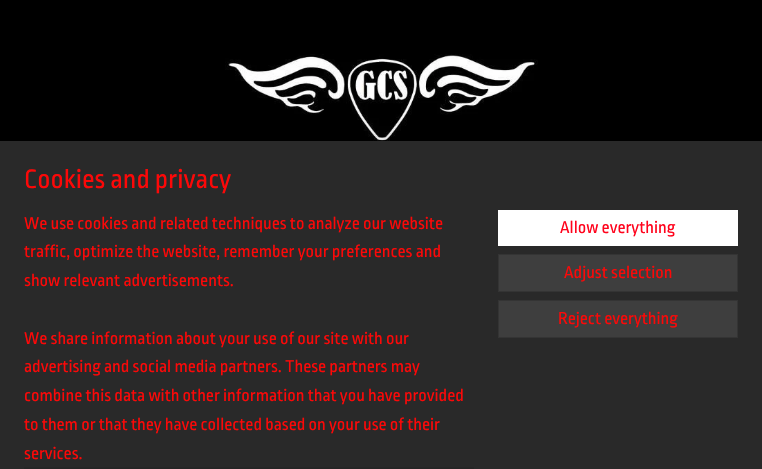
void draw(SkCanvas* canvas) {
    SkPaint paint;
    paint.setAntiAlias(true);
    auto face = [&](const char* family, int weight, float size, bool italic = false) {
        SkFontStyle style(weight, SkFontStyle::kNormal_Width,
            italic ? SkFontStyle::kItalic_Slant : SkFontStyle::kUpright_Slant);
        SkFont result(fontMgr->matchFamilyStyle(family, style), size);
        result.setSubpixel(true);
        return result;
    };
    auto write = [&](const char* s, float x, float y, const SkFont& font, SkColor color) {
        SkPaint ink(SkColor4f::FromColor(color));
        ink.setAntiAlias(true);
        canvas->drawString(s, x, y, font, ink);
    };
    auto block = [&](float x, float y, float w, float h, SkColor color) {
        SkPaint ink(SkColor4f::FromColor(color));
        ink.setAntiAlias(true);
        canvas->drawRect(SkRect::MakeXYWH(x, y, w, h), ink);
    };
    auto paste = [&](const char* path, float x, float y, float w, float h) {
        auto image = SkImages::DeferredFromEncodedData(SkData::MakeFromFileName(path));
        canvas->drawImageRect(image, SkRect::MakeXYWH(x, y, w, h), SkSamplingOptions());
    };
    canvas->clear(SK_ColorBLACK);
    paste("pic1.png", 225, 54, 313, 87);
    paint.setColor(SkColorSetARGB(51, 0, 0, 0));
    paint.setMaskFilter(SkMaskFilter::MakeBlur(kNormal_SkBlurStyle, 18));
    canvas->drawRect(SkRect::MakeXYWH(10, 151, 742, 308), paint);
    paint.setMaskFilter(nullptr);
    block(0, 141, 762, 328, SkColorSetRGB(41, 41, 41));
    auto kFont1 = face("Ropa Sans", 400, 28);
    write("Cookies and privacy", 24, 188, kFont1, SkColorSetRGB(252, 8, 8));
    auto kFont2 = face("Ropa Sans", 400, 18);
    write("We use cookies and related techniques to analyze our website", 24, 229, kFont2, SkColorSetRGB(252, 8, 8));
    write("traffic, optimize the website, remember your preferences and", 24, 257, kFont2, SkColorSetRGB(252, 8, 8));
    write("show relevant advertisements.", 24, 286, kFont2, SkColorSetRGB(252, 8, 8));
    write("We share information about your use of our site with our", 24, 344, kFont2, SkColorSetRGB(252, 8, 8));
    write("advertising and social media partners. These partners may", 24, 372, kFont2, SkColorSetRGB(252, 8, 8));
    write("combine this data with other information that you have provided", 24, 401, kFont2, SkColorSetRGB(252, 8, 8));
    write("to them or that they have collected based on your use of their", 24, 430, kFont2, SkColorSetRGB(252, 8, 8));
    write("services.", 24, 459, kFont2, SkColorSetRGB(252, 8, 8));
    {
        const SkColor colors[] = {SkColorSetRGB(41, 41, 41), SkColorSetRGB(37, 37, 37)};
        const float stops[] = {0.2f, 1};
        const SkPoint ends[] = {{249, 463}, {249, 469}};
        paint.setShader(SkGradientShader::MakeLinear(ends, colors, stops, 2, SkTileMode::kClamp));
        paint.setAlpha(255);
    }
    canvas->drawRect(SkRect::MakeXYWH(24, 467, 450, 2), paint);
    block(498, 210, 240, 36, SK_ColorWHITE);
    write("Allow everything", 560, 233, kFont2, SkColorSetRGB(255, 3, 28));
    paint.setShader(nullptr);
    paint.setColor(SkColorSetRGB(62, 62, 62));
    canvas->drawRect(SkRect::MakeXYWH(498.5f, 254.5f, 239, 37), paint);
    paint.setStyle(SkPaint::kStroke_Style);
    paint.setStrokeWidth(1);
    paint.setColor(SkColorSetRGB(52, 52, 52));
    canvas->drawRect(SkRect::MakeXYWH(498.5f, 254.5f, 239, 37), paint);
    write("Adjust selection", 564, 278, kFont2, SkColorSetRGB(252, 8, 8));
    paint.setStyle(SkPaint::kFill_Style);
    paint.setColor(SkColorSetRGB(62, 62, 62));
    canvas->drawRect(SkRect::MakeXYWH(498.5f, 300.5f, 239, 37), paint);
    paint.setStyle(SkPaint::kStroke_Style);
    paint.setColor(SkColorSetRGB(52, 52, 52));
    canvas->drawRect(SkRect::MakeXYWH(498.5f, 300.5f, 239, 37), paint);
    write("Reject everything", 558, 324, kFont2, SkColorSetRGB(252, 8, 8));
}
